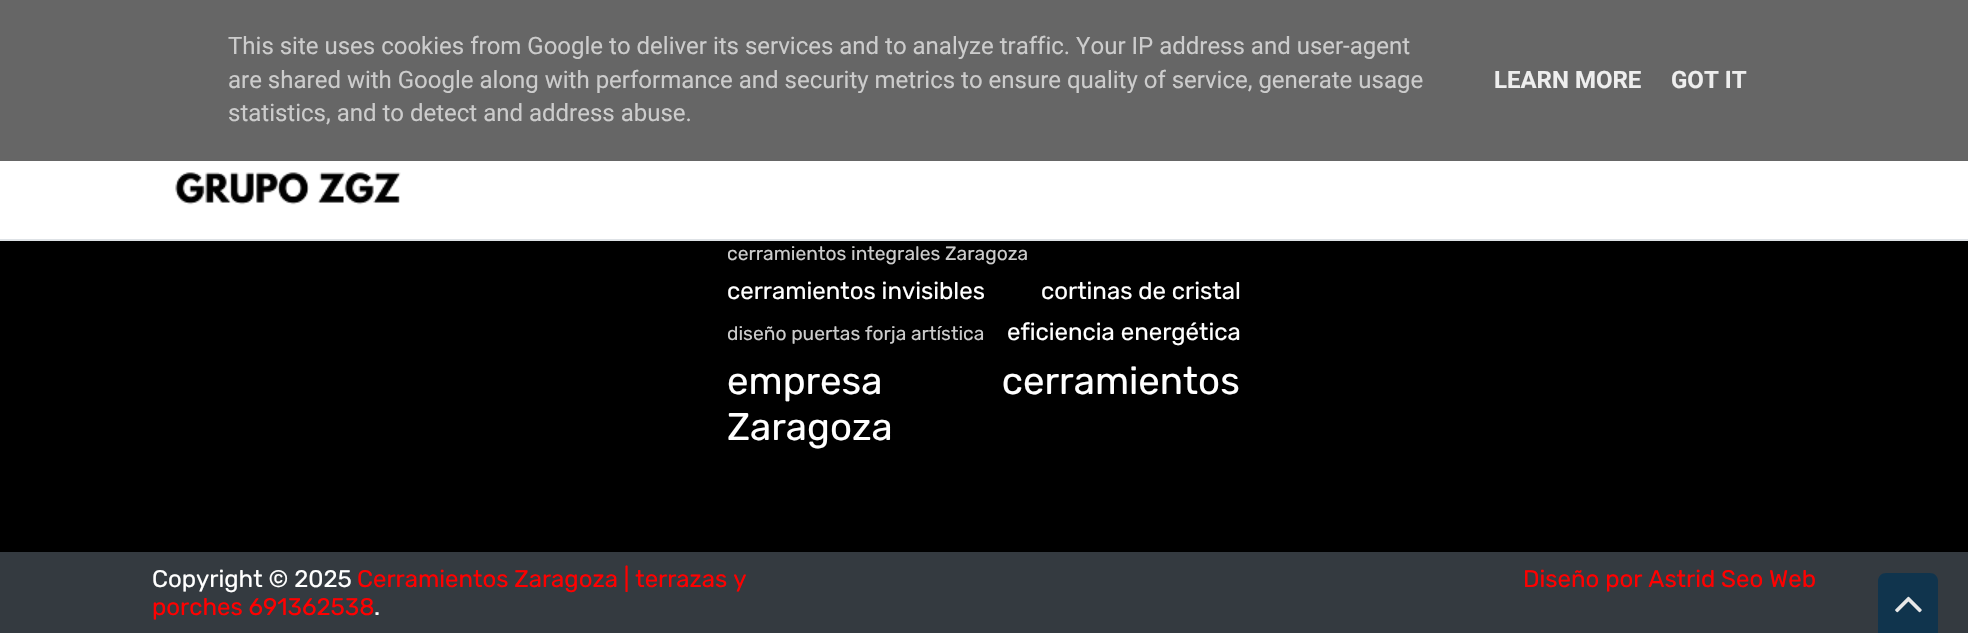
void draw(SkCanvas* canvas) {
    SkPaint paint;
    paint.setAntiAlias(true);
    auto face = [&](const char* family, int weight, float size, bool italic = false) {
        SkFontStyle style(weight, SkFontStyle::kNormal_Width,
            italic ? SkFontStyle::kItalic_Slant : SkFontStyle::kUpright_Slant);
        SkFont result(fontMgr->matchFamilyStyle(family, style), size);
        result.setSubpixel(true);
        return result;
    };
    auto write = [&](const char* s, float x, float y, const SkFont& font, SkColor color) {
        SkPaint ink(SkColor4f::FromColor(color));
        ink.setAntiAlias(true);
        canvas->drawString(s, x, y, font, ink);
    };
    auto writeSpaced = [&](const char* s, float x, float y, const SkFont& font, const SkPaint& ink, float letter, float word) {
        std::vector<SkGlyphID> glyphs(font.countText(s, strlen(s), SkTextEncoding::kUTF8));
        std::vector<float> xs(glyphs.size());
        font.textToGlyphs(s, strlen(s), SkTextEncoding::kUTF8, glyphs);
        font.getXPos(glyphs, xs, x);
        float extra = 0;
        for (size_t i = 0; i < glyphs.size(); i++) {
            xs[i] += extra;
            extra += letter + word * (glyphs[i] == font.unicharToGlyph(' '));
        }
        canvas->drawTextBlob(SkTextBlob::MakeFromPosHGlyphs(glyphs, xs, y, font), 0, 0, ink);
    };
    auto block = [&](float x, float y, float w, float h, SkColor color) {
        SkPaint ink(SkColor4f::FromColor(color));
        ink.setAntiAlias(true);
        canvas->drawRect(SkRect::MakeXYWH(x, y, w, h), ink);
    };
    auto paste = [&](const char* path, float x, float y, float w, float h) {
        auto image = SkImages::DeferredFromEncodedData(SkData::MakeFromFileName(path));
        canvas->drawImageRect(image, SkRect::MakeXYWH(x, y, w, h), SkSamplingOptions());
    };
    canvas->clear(SK_ColorBLACK);
    block(0, 0, 1968, 161, SkColorSetRGB(102, 102, 102));
    auto kFont1 = face("Roboto", 400, 24);
    write("This site uses cookies from Google to deliver its services and to analyze traffic. Your IP address and user-agent", 228, 54, kFont1, SkColorSetRGB(204, 204, 204));
    write("are shared with Google along with performance and security metrics to ensure quality of service, generate usage", 228, 88, kFont1, SkColorSetRGB(204, 204, 204));
    write("statistics, and to detect and address abuse.", 228, 121, kFont1, SkColorSetRGB(204, 204, 204));
    auto kFont2 = face("Roboto", 700, 24);
    write("LEARN MORE", 1494, 88, kFont2, SkColorSetRGB(238, 238, 238));
    write("GOT IT", 1671, 88, kFont2, SkColorSetRGB(238, 238, 238));
    block(0, 161, 1968, 78, SK_ColorWHITE);
    block(0, 239, 1968, 2, SkColorSetRGB(222, 226, 230));
    paste("pic1.png", 175, 172, 226, 33);
    auto kFont3 = face("Rubik", 300, 19.25f);
    write("cerramientos integrales Zaragoza", 727, 260, kFont3, SkColorSetRGB(204, 204, 204));
    auto kFont4 = face("Rubik", 300, 24);
    write("cerramientos invisibles", 727, 299, kFont4, SK_ColorWHITE);
    write("cortinas de cristal", 1041, 299, kFont4, SK_ColorWHITE);
    write("diseño puertas forja artística", 727, 340, kFont3, SkColorSetRGB(204, 204, 204));
    write("eficiencia energética", 1007, 340, kFont4, SK_ColorWHITE);
    auto kFont5 = face("Rubik", 300, 38.4f);
    paint.setColor(SK_ColorWHITE);
    writeSpaced("empresa cerramientos", 727, 394, kFont5, paint, 0, 110);
    write("Zaragoza", 727, 440, kFont5, SK_ColorWHITE);
    block(0, 552, 1968, 81, SkColorSetRGB(52, 58, 64));
    write("Copyright © 2025", 152, 587, kFont4, SK_ColorWHITE);
    write("Cerramientos Zaragoza | terrazas y", 357, 587, kFont4, SkColorSetRGB(255, 0, 0));
    write("porches 691362538", 152, 615, kFont4, SkColorSetRGB(255, 0, 0));
    write(".", 374, 615, kFont4, SK_ColorWHITE);
    write("Diseño por Astrid Seo Web", 1523, 587, kFont4, SkColorSetRGB(255, 0, 0));
    paint.setColor(SkColorSetRGB(16, 52, 77));
    canvas->drawPath(SkPathBuilder().moveTo(1886, 573).lineTo(1930, 573).cubicTo(1934.5f, 573, 1938, 576.5f, 1938, 581).lineTo(1938, 633).lineTo(1878, 633).lineTo(1878, 581).cubicTo(1878, 576.5f, 1881.5f, 573, 1886, 573).close().detach(), paint);
    paste("pic2.png", 1895, 596, 27, 17);
}
